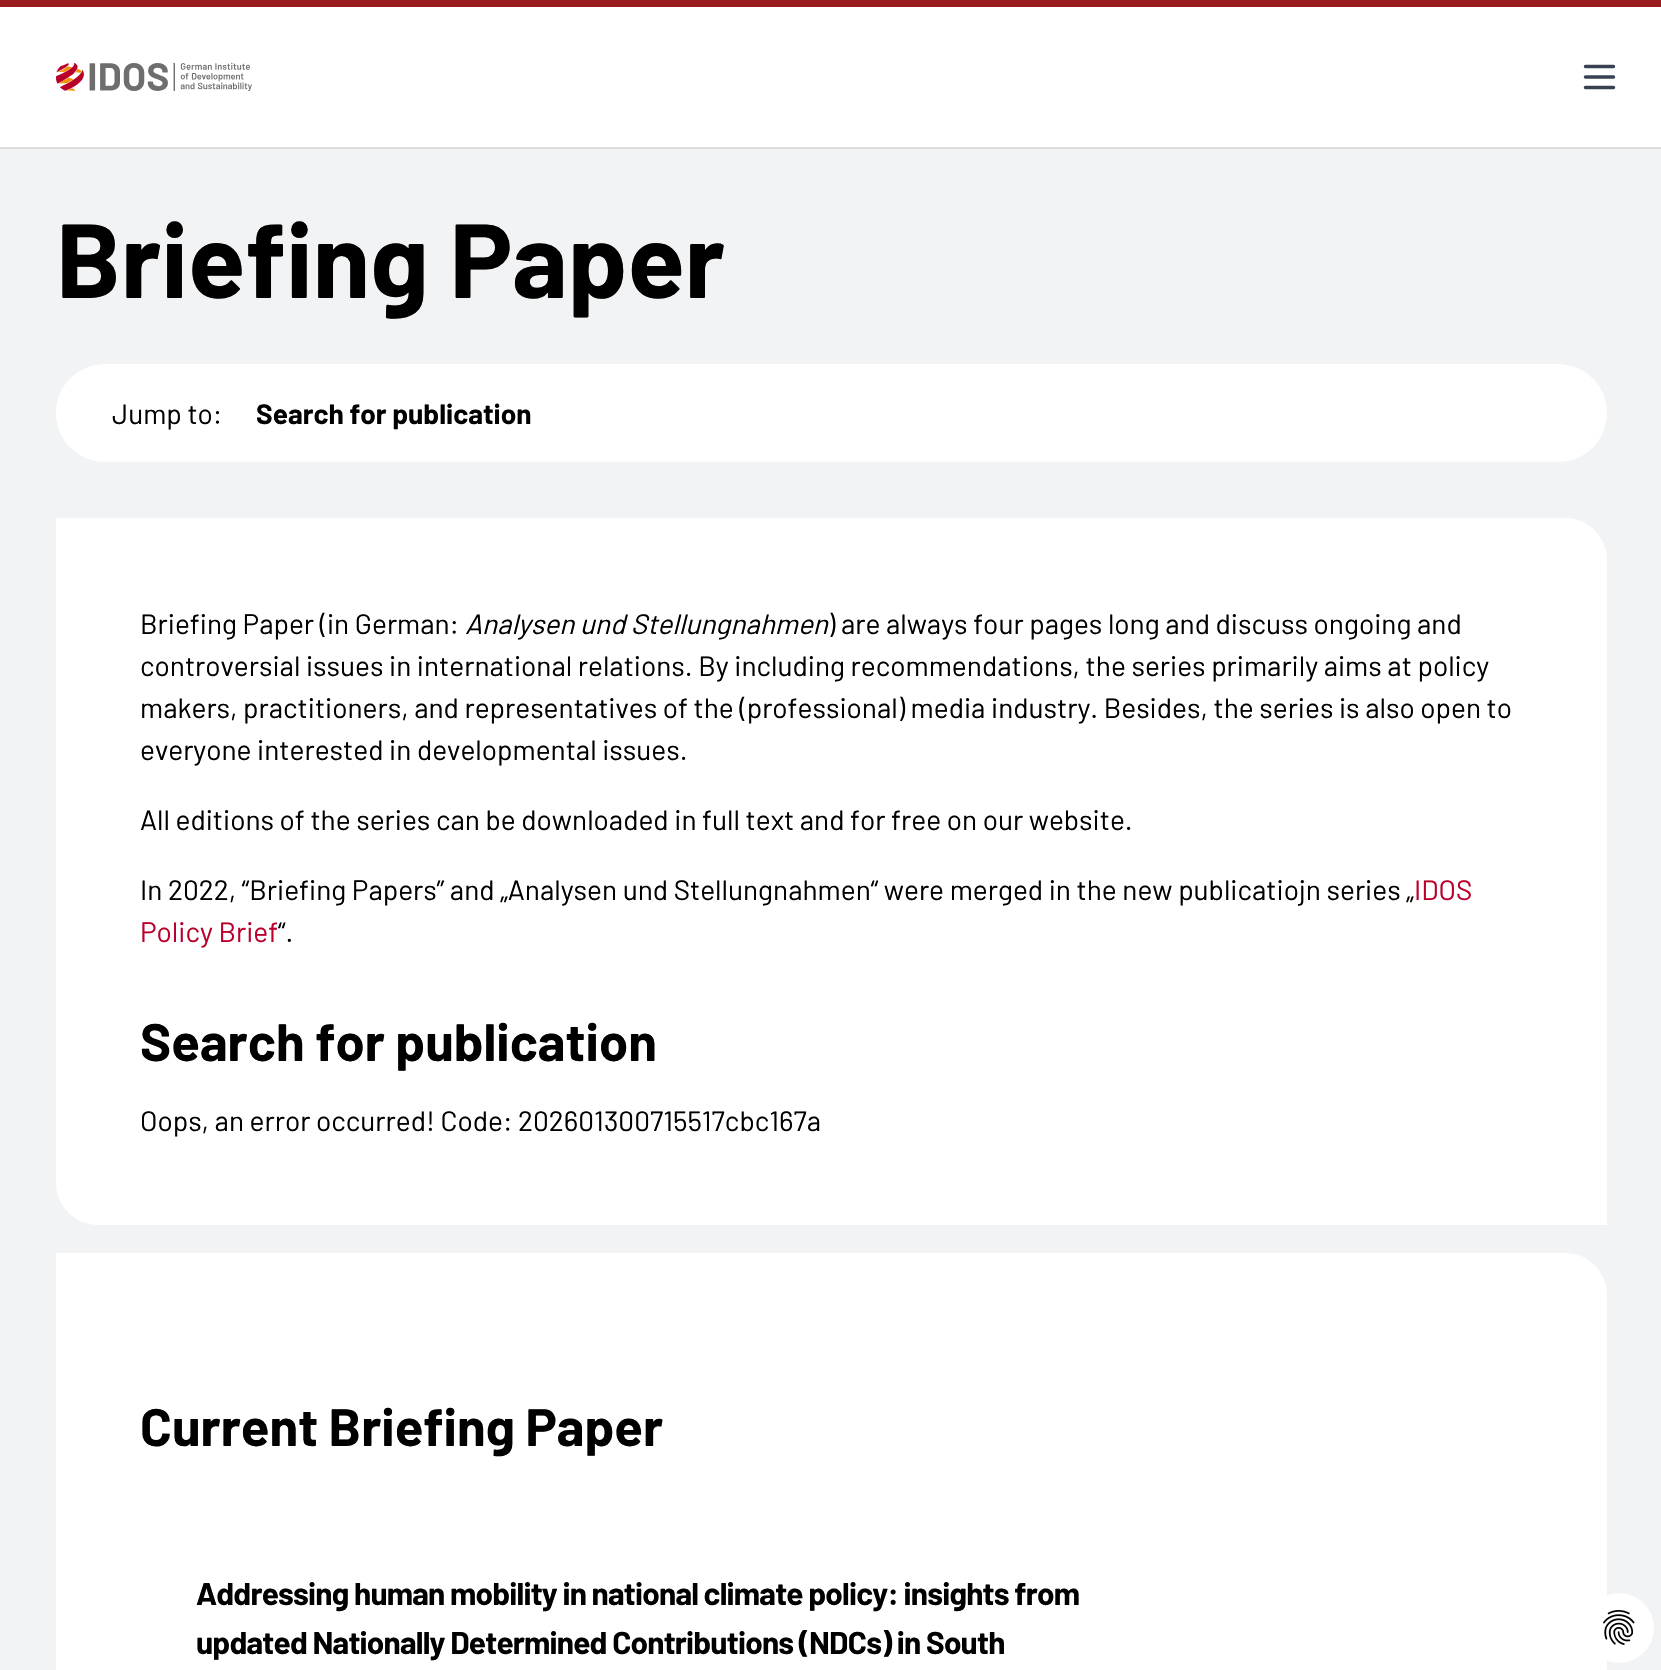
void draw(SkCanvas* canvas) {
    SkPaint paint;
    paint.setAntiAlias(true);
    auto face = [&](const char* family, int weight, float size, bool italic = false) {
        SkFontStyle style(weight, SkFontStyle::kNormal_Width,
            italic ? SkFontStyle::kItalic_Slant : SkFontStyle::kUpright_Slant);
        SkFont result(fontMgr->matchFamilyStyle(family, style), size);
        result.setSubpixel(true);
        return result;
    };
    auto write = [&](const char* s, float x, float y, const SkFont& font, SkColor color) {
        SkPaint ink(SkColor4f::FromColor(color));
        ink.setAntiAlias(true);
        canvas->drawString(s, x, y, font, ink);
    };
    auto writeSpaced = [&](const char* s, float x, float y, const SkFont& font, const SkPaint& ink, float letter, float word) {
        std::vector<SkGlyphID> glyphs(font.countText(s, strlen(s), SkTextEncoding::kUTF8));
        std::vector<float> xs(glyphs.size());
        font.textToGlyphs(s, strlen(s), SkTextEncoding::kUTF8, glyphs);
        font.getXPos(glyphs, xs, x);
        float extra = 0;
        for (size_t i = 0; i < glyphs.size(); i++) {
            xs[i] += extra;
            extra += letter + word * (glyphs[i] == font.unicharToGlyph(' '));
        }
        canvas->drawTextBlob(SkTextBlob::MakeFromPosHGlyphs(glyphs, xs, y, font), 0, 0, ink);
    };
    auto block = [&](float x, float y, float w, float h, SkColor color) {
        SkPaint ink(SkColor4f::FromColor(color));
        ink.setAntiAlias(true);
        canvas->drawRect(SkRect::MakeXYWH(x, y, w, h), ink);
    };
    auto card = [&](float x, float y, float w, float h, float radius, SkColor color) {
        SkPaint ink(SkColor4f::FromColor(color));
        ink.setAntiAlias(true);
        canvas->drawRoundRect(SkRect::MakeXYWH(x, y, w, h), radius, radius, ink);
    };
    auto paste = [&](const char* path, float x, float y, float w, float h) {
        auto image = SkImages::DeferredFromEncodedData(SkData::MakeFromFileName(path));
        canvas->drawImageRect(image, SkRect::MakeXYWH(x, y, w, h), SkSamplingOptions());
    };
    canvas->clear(SK_ColorWHITE);
    block(0, 0, 1661, 7, SkColorSetRGB(153, 27, 27));
    paint.setStyle(SkPaint::kStroke_Style);
    paint.setStrokeWidth(2);
    paint.setColor(SkColorSetRGB(219, 221, 223));
    canvas->drawRect(SkRect::MakeXYWH(-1, -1, 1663, 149), paint);
    paste("pic1.png", 56, 62, 196, 29);
    paint.setStrokeWidth(3.5f);
    paint.setStrokeCap(SkPaint::kRound_Cap);
    paint.setStrokeJoin(SkPaint::kRound_Join);
    paint.setColor(SkColorSetRGB(55, 65, 81));
    canvas->drawPath(SkPathBuilder().moveTo(1585.5f, 66.5f).lineTo(1613.5f, 66.5f).moveTo(1585.5f, 77).lineTo(1613.5f, 77).moveTo(1585.5f, 87.5f).lineTo(1613.5f, 87.5f).detach(), paint);
    block(0, 149, 1661, 1521, SkColorSetRGB(242, 243, 244));
    auto kFont1 = face("Barlow", 700, 105);
    write("Briefing Paper", 56, 298, kFont1, SK_ColorBLACK);
    card(56, 364, 1551, 98, 49, SK_ColorWHITE);
    auto kFont2 = face("Barlow", 400, 28);
    write("Jump to:", 112, 424, kFont2, SK_ColorBLACK);
    auto kFont3 = face("Barlow", 700, 28);
    write("Search for publication", 256, 424, kFont3, SK_ColorBLACK);
    paint.setStyle(SkPaint::kFill_Style);
    paint.setColor(SK_ColorWHITE);
    canvas->drawPath(SkPathBuilder().moveTo(56, 518).lineTo(1565, 518).cubicTo(1588, 518, 1607, 537, 1607, 560).lineTo(1607, 1225).lineTo(98, 1225).cubicTo(75, 1225, 56, 1206, 56, 1183).close().detach(), paint);
    write("Briefing Paper (in German:", 140, 634, kFont2, SK_ColorBLACK);
    auto kFont4 = face("Barlow", 400, 28, true);
    write("Analysen und Stellungnahmen", 465, 634, kFont4, SK_ColorBLACK);
    write(") are always four pages long and discuss ongoing and", 828, 634, kFont2, SK_ColorBLACK);
    write("controversial issues in international relations. By including recommendations, the series primarily aims at policy", 140, 676, kFont2, SK_ColorBLACK);
    write("makers, practitioners, and representatives of the (professional) media industry. Besides, the series is also open to", 140, 718, kFont2, SK_ColorBLACK);
    write("everyone interested in developmental issues.", 140, 760, kFont2, SK_ColorBLACK);
    write("All editions of the series can be downloaded in full text and for free on our website.", 140, 830, kFont2, SK_ColorBLACK);
    write("In 2022, “Briefing Papers” and „Analysen und Stellungnahmen“ were merged in the new publicatiojn series „", 140, 900, kFont2, SK_ColorBLACK);
    write("IDOS", 1414, 900, kFont2, SkColorSetRGB(184, 0, 43));
    write("Policy Brief", 140, 942, kFont2, SkColorSetRGB(184, 0, 43));
    write("“.", 278, 942, kFont2, SK_ColorBLACK);
    auto kFont5 = face("Barlow", 700, 52.5f);
    write("Search for publication", 140, 1061, kFont5, SK_ColorBLACK);
    write("Oops, an error occurred! Code: 202601300715517cbc167a", 140, 1131, kFont2, SK_ColorBLACK);
    canvas->drawPath(SkPathBuilder().moveTo(56, 1253).lineTo(1565, 1253).cubicTo(1588, 1253, 1607, 1272, 1607, 1295).lineTo(1607, 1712).lineTo(98, 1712).cubicTo(75, 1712, 56, 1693, 56, 1670).close().detach(), paint);
    write("Current Briefing Paper", 140, 1446, kFont5, SK_ColorBLACK);
    auto kFont6 = face("Barlow", 700, 31.5f);
    paint.setColor(SK_ColorBLACK);
    writeSpaced("Addressing human mobility in national climate policy: insights from", 196, 1605, kFont6, paint, -0.8f, 0);
    writeSpaced("updated Nationally Determined Contributions (NDCs) in South", 196, 1654, kFont6, paint, -0.8f, 0);
    paint.setColor(SK_ColorWHITE);
    canvas->drawCircle(1619, 1628, 35, paint);
    paste("pic2.png", 1603, 1610, 32, 35);
}
